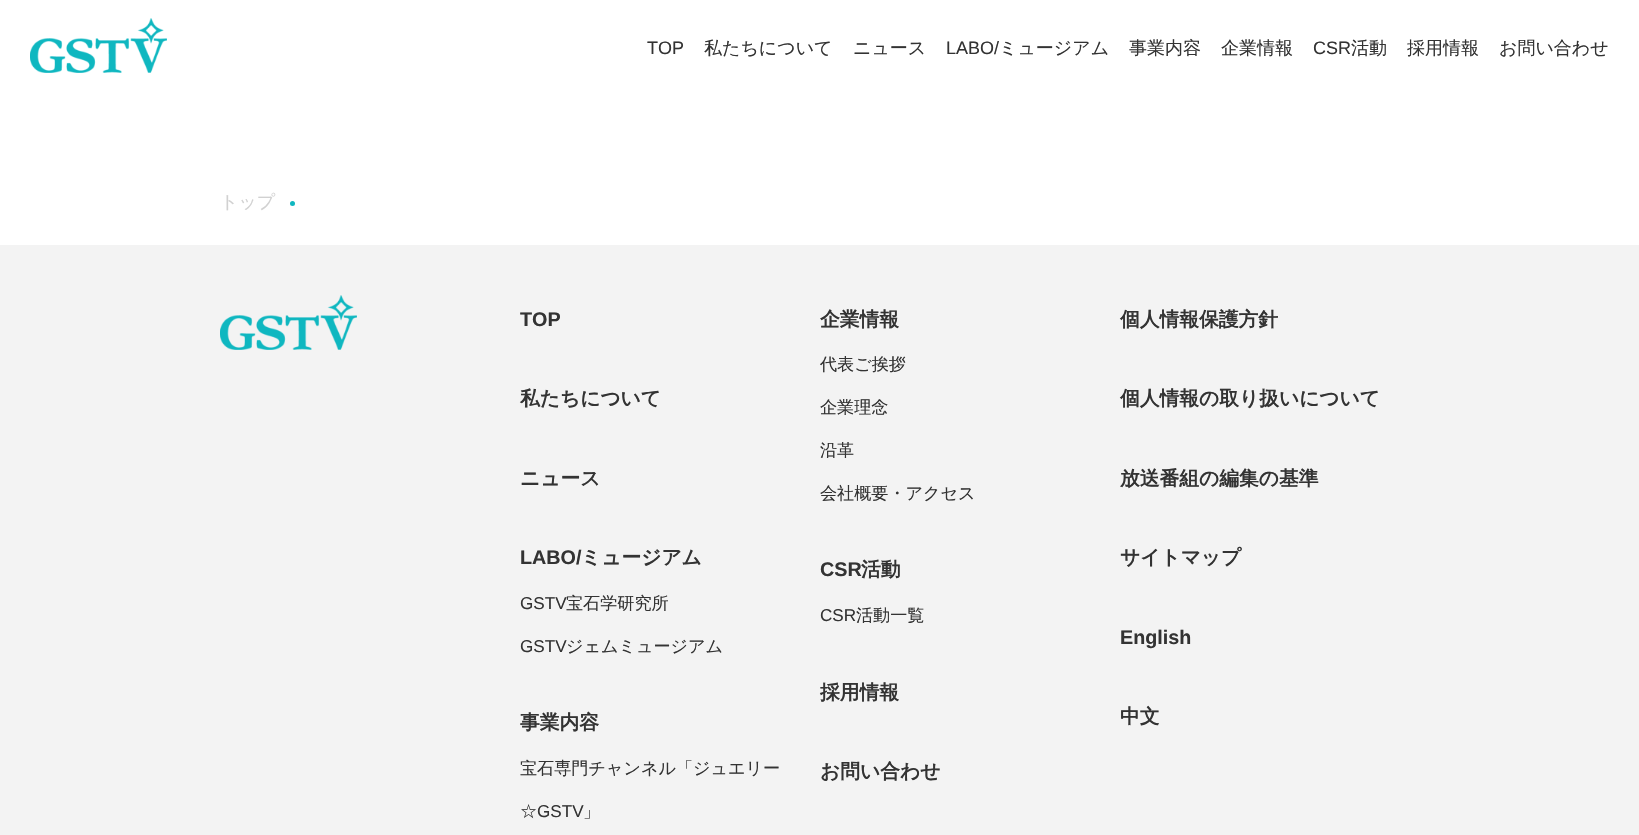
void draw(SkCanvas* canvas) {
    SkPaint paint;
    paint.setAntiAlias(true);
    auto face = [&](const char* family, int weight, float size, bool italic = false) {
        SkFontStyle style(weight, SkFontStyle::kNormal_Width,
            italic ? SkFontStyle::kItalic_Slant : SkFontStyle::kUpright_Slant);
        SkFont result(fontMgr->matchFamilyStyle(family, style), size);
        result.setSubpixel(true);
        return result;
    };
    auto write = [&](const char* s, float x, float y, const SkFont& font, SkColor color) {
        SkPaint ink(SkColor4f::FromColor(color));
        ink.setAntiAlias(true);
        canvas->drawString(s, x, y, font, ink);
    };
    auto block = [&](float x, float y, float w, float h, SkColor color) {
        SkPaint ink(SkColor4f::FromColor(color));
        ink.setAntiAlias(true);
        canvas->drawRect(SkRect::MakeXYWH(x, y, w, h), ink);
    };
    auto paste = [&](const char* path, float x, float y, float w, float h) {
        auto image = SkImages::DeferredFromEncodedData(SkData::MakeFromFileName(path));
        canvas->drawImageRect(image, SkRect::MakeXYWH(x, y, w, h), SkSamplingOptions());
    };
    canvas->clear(SK_ColorWHITE);
    paste("pic1.png", 30, 18, 137, 55);
    auto kFont1 = face("Liberation Sans", 400, 18);
    write("TOP", 647, 54, kFont1, SkColorSetRGB(51, 51, 51));
    auto kFont2 = face("WenQuanYi Zen Hei", 500, 18);
    write("私たちについて", 704, 54, kFont2, SkColorSetRGB(51, 51, 51));
    write("ニュース", 853, 54, kFont2, SkColorSetRGB(51, 51, 51));
    write("LABO/", 946, 54, kFont1, SkColorSetRGB(51, 51, 51));
    write("ミュージアム", 999, 54, kFont2, SkColorSetRGB(51, 51, 51));
    write("事業内容", 1129, 54, kFont2, SkColorSetRGB(51, 51, 51));
    write("企業情報", 1221, 54, kFont2, SkColorSetRGB(51, 51, 51));
    write("CSR", 1313, 54, kFont1, SkColorSetRGB(51, 51, 51));
    write("活動", 1351, 54, kFont2, SkColorSetRGB(51, 51, 51));
    write("採用情報", 1407, 54, kFont2, SkColorSetRGB(51, 51, 51));
    write("お問い合わせ", 1499, 54, kFont2, SkColorSetRGB(51, 51, 51));
    write("トップ", 220, 208, kFont2, SkColorSetRGB(209, 209, 209));
    paint.setColor(SkColorSetRGB(15, 183, 192));
    canvas->drawCircle(292.5f, 203.5f, 2.5f, paint);
    block(0, 245, 1639, 590, SkColorSetRGB(243, 243, 243));
    paste("pic2.png", 220, 295, 137, 55);
    auto kFont3 = face("Liberation Sans", 700, 19.75f);
    write("TOP", 520, 326, kFont3, SkColorSetRGB(51, 51, 51));
    auto kFont4 = face("WenQuanYi Zen Hei", 700, 19.75f);
    write("私たちについて", 520, 405, kFont4, SkColorSetRGB(51, 51, 51));
    write("ニュース", 520, 485, kFont4, SkColorSetRGB(51, 51, 51));
    write("LABO/", 520, 564, kFont3, SkColorSetRGB(51, 51, 51));
    write("ミュージアム", 581, 564, kFont4, SkColorSetRGB(51, 51, 51));
    auto kFont5 = face("Liberation Sans", 400, 17.1f);
    write("GSTV", 520, 609, kFont5, SkColorSetRGB(51, 51, 51));
    auto kFont6 = face("WenQuanYi Zen Hei", 500, 17.1f);
    write("宝石学研究所", 566, 609, kFont6, SkColorSetRGB(51, 51, 51));
    write("GSTV", 520, 652, kFont5, SkColorSetRGB(51, 51, 51));
    write("ジェムミュージアム", 566, 652, kFont6, SkColorSetRGB(51, 51, 51));
    write("事業内容", 520, 729, kFont4, SkColorSetRGB(51, 51, 51));
    write("宝石専門チャンネル「ジュエリー", 520, 774, kFont6, SkColorSetRGB(51, 51, 51));
    write("☆", 520, 817, kFont6, SkColorSetRGB(51, 51, 51));
    write("GSTV", 537, 817, kFont5, SkColorSetRGB(51, 51, 51));
    write("」", 583, 817, kFont6, SkColorSetRGB(51, 51, 51));
    write("企業情報", 820, 326, kFont4, SkColorSetRGB(51, 51, 51));
    write("代表ご挨拶", 820, 370, kFont6, SkColorSetRGB(51, 51, 51));
    write("企業理念", 820, 413, kFont6, SkColorSetRGB(51, 51, 51));
    write("沿革", 820, 456, kFont6, SkColorSetRGB(51, 51, 51));
    write("会社概要・アクセス", 820, 499, kFont6, SkColorSetRGB(51, 51, 51));
    write("CSR", 820, 576, kFont3, SkColorSetRGB(51, 51, 51));
    write("活動", 861, 576, kFont4, SkColorSetRGB(51, 51, 51));
    write("CSR", 820, 621, kFont5, SkColorSetRGB(51, 51, 51));
    write("活動一覧", 856, 621, kFont6, SkColorSetRGB(51, 51, 51));
    write("採用情報", 820, 699, kFont4, SkColorSetRGB(51, 51, 51));
    write("お問い合わせ", 820, 778, kFont4, SkColorSetRGB(51, 51, 51));
    write("個人情報保護方針", 1120, 326, kFont4, SkColorSetRGB(51, 51, 51));
    write("個人情報の取り扱いについて", 1120, 405, kFont4, SkColorSetRGB(51, 51, 51));
    write("放送番組の編集の基準", 1120, 485, kFont4, SkColorSetRGB(51, 51, 51));
    write("サイトマップ", 1120, 564, kFont4, SkColorSetRGB(51, 51, 51));
    write("English", 1120, 644, kFont3, SkColorSetRGB(51, 51, 51));
    write("中文", 1120, 723, kFont4, SkColorSetRGB(51, 51, 51));
}
